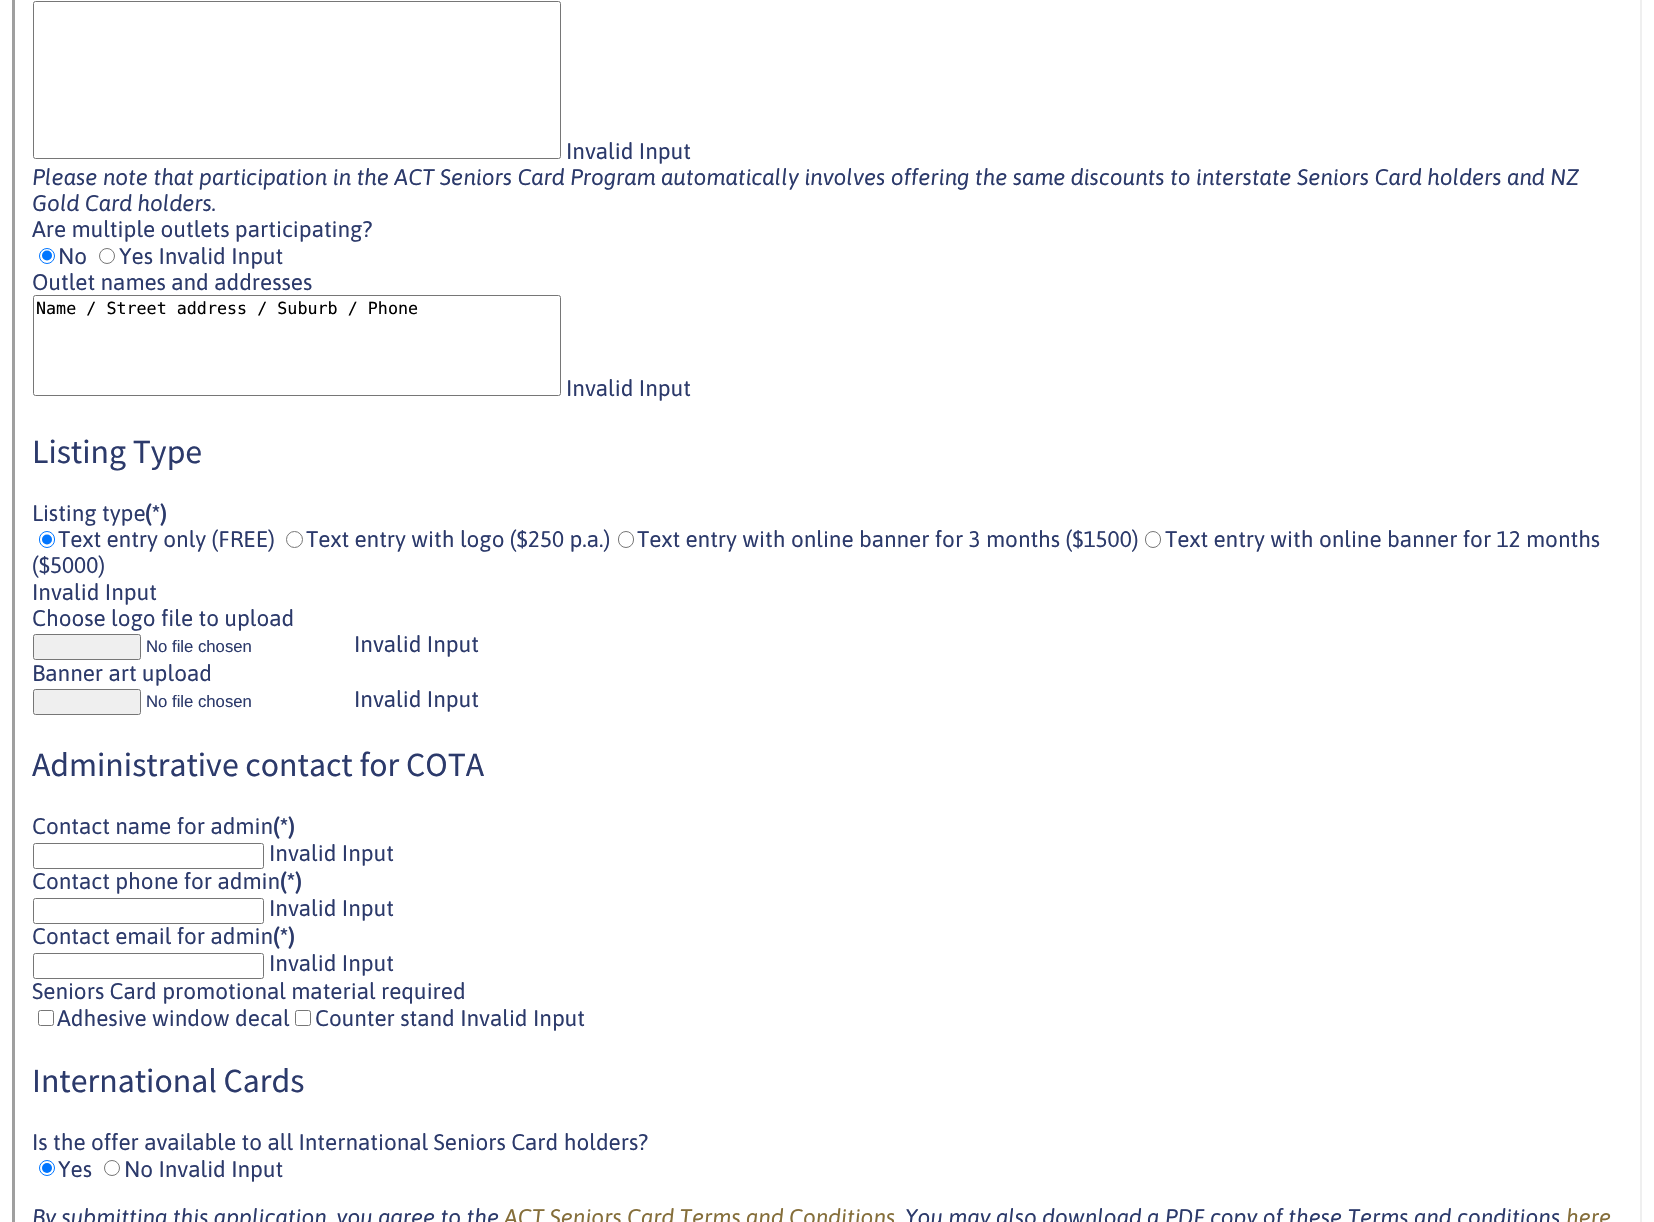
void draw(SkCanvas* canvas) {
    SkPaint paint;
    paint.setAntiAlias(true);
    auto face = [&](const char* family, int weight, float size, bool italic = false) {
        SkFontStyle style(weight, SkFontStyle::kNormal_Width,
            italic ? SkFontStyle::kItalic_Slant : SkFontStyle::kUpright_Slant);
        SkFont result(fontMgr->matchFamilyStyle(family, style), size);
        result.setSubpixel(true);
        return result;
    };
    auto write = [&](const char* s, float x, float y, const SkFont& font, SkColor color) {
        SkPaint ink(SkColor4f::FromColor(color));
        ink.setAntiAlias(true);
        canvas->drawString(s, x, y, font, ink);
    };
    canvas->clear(SK_ColorWHITE);
    paint.setColor(SkColorSetRGB(239, 239, 239));
    canvas->drawPath(SkPathBuilder().moveTo(1642, -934).lineTo(1642, 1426).lineTo(1640, 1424).lineTo(1640, -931).close().detach(), paint);
    paint.setColor(SkColorSetRGB(159, 159, 159));
    canvas->drawPath(SkPathBuilder().moveTo(12, 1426).lineTo(12, -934).lineTo(15, -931).lineTo(15, 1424).close().detach(), paint);
    paint.setStyle(SkPaint::kStroke_Style);
    paint.setStrokeWidth(1);
    paint.setColor(SkColorSetRGB(118, 118, 118));
    canvas->drawRoundRect(SkRect::MakeXYWH(33.5f, 1.5f, 527, 157), 2, 2, paint);
    auto kFont1 = face("Asap", 400, 22.5f);
    write("Invalid Input", 566, 159, kFont1, SkColorSetRGB(44, 58, 107));
    auto kFont2 = face("Asap", 400, 22.5f, true);
    write("Please note that participation in the ACT Seniors Card Program automatically involves offering the same discounts to interstate Seniors Card holders and NZ", 32, 185, kFont2, SkColorSetRGB(44, 58, 107));
    write("Gold Card holders.", 32, 211, kFont2, SkColorSetRGB(44, 58, 107));
    write("Are multiple outlets participating?", 32, 237, kFont1, SkColorSetRGB(44, 58, 107));
    paint.setColor(SkColorSetRGB(0, 117, 255));
    canvas->drawCircle(47, 256, 7.5f, paint);
    paint.setStyle(SkPaint::kFill_Style);
    canvas->drawCircle(47, 255.5f, 5, paint);
    write("No", 58, 264, kFont1, SkColorSetRGB(44, 58, 107));
    paint.setStyle(SkPaint::kStroke_Style);
    paint.setColor(SkColorSetRGB(118, 118, 118));
    canvas->drawCircle(107, 256, 7.5f, paint);
    write("Yes Invalid Input", 119, 264, kFont1, SkColorSetRGB(44, 58, 107));
    write("Outlet names and addresses", 32, 290, kFont1, SkColorSetRGB(44, 58, 107));
    canvas->drawRoundRect(SkRect::MakeXYWH(33.5f, 295.5f, 527, 100), 2, 2, paint);
    auto kFont3 = face("DejaVu Sans Mono", 400, 16.7f);
    write("Name / Street address / Suburb / Phone", 36, 314, kFont3, SK_ColorBLACK);
    write("Invalid Input", 566, 396, kFont1, SkColorSetRGB(44, 58, 107));
    auto kFont4 = face("Source Sans Pro", 400, 33.75f);
    write("Listing Type", 32, 463, kFont4, SkColorSetRGB(44, 58, 107));
    write("Listing type", 32, 521, kFont1, SkColorSetRGB(44, 58, 107));
    auto kFont5 = face("Asap", 700, 22.5f);
    write("(*)", 145, 521, kFont5, SkColorSetRGB(44, 58, 107));
    paint.setColor(SkColorSetRGB(0, 117, 255));
    canvas->drawRoundRect(SkRect::MakeXYWH(39.5f, 531.5f, 15, 16), 7.5f, 7.5f, paint);
    paint.setStyle(SkPaint::kFill_Style);
    canvas->drawCircle(47, 539.5f, 5, paint);
    write("Text entry only (FREE)", 58, 547, kFont1, SkColorSetRGB(44, 58, 107));
    paint.setStyle(SkPaint::kStroke_Style);
    paint.setColor(SkColorSetRGB(118, 118, 118));
    canvas->drawCircle(294.5f, 539.5f, 8, paint);
    write("Text entry with logo ($250 p.a.)", 306, 547, kFont1, SkColorSetRGB(44, 58, 107));
    canvas->drawRoundRect(SkRect::MakeXYWH(618.5f, 531.5f, 15, 16), 7.5f, 7.5f, paint);
    write("Text entry with online banner for 3 months ($1500)", 637, 547, kFont1, SkColorSetRGB(44, 58, 107));
    canvas->drawRoundRect(SkRect::MakeXYWH(1145.5f, 531.5f, 15, 16), 7.5f, 7.5f, paint);
    write("Text entry with online banner for 12 months", 1165, 547, kFont1, SkColorSetRGB(44, 58, 107));
    write("($5000)", 32, 573, kFont1, SkColorSetRGB(44, 58, 107));
    write("Invalid Input", 32, 600, kFont1, SkColorSetRGB(44, 58, 107));
    write("Choose logo file to upload", 32, 626, kFont1, SkColorSetRGB(44, 58, 107));
    paint.setStyle(SkPaint::kFill_Style);
    paint.setColor(SkColorSetRGB(239, 239, 239));
    canvas->drawRoundRect(SkRect::MakeXYWH(33.5f, 634.5f, 107, 25), 2, 2, paint);
    paint.setStyle(SkPaint::kStroke_Style);
    paint.setColor(SkColorSetRGB(118, 118, 118));
    canvas->drawRoundRect(SkRect::MakeXYWH(33.5f, 634.5f, 107, 25), 2, 2, paint);
    auto kFont6 = face("Liberation Sans", 400, 16.7f);
    write("No file chosen", 146, 652, kFont6, SkColorSetRGB(44, 58, 107));
    write("Invalid Input", 354, 652, kFont1, SkColorSetRGB(44, 58, 107));
    write("Banner art upload", 32, 681, kFont1, SkColorSetRGB(44, 58, 107));
    paint.setStyle(SkPaint::kFill_Style);
    paint.setColor(SkColorSetRGB(239, 239, 239));
    canvas->drawRoundRect(SkRect::MakeXYWH(33.5f, 689.5f, 107, 25), 2, 2, paint);
    paint.setStyle(SkPaint::kStroke_Style);
    paint.setColor(SkColorSetRGB(118, 118, 118));
    canvas->drawRoundRect(SkRect::MakeXYWH(33.5f, 689.5f, 107, 25), 2, 2, paint);
    write("No file chosen", 146, 707, kFont6, SkColorSetRGB(44, 58, 107));
    write("Invalid Input", 354, 707, kFont1, SkColorSetRGB(44, 58, 107));
    write("Administrative contact for COTA", 32, 776, kFont4, SkColorSetRGB(44, 58, 107));
    write("Contact name for admin", 32, 834, kFont1, SkColorSetRGB(44, 58, 107));
    write("(*)", 273, 834, kFont5, SkColorSetRGB(44, 58, 107));
    canvas->drawRoundRect(SkRect::MakeXYWH(33.5f, 843.5f, 230, 25), 2, 2, paint);
    write("Invalid Input", 269, 861, kFont1, SkColorSetRGB(44, 58, 107));
    write("Contact phone for admin", 32, 889, kFont1, SkColorSetRGB(44, 58, 107));
    write("(*)", 280, 889, kFont5, SkColorSetRGB(44, 58, 107));
    canvas->drawRoundRect(SkRect::MakeXYWH(33.5f, 898.5f, 230, 25), 2, 2, paint);
    write("Invalid Input", 269, 916, kFont1, SkColorSetRGB(44, 58, 107));
    write("Contact email for admin", 32, 944, kFont1, SkColorSetRGB(44, 58, 107));
    write("(*)", 273, 944, kFont5, SkColorSetRGB(44, 58, 107));
    canvas->drawRoundRect(SkRect::MakeXYWH(33.5f, 953.5f, 230, 25), 2, 2, paint);
    write("Invalid Input", 269, 971, kFont1, SkColorSetRGB(44, 58, 107));
    write("Seniors Card promotional material required", 32, 999, kFont1, SkColorSetRGB(44, 58, 107));
    canvas->drawRoundRect(SkRect::MakeXYWH(38.5f, 1010.5f, 15, 15), 2, 2, paint);
    write("Adhesive window decal", 57, 1026, kFont1, SkColorSetRGB(44, 58, 107));
    canvas->drawRoundRect(SkRect::MakeXYWH(295.5f, 1010.5f, 15, 15), 2, 2, paint);
    write("Counter stand Invalid Input", 315, 1026, kFont1, SkColorSetRGB(44, 58, 107));
    write("International Cards", 32, 1092, kFont4, SkColorSetRGB(44, 58, 107));
    write("Is the offer available to all International Seniors Card holders?", 32, 1150, kFont1, SkColorSetRGB(44, 58, 107));
    paint.setColor(SkColorSetRGB(0, 117, 255));
    canvas->drawCircle(47, 1168, 7.5f, paint);
    paint.setStyle(SkPaint::kFill_Style);
    canvas->drawCircle(47, 1168, 5, paint);
    write("Yes", 58, 1177, kFont1, SkColorSetRGB(44, 58, 107));
    paint.setStyle(SkPaint::kStroke_Style);
    paint.setColor(SkColorSetRGB(118, 118, 118));
    canvas->drawCircle(112, 1168, 7.5f, paint);
    write("No Invalid Input", 124, 1177, kFont1, SkColorSetRGB(44, 58, 107));
    write("By submitting this application, you agree to the", 32, 1225, kFont2, SkColorSetRGB(44, 58, 107));
    write("ACT Seniors Card Terms and Conditions", 504, 1225, kFont2, SkColorSetRGB(133, 110, 58));
    write("You may also download a PDF copy of these Terms and conditions", 905, 1225, kFont2, SkColorSetRGB(44, 58, 107));
    write("here", 1566, 1225, kFont2, SkColorSetRGB(133, 110, 58));
}
